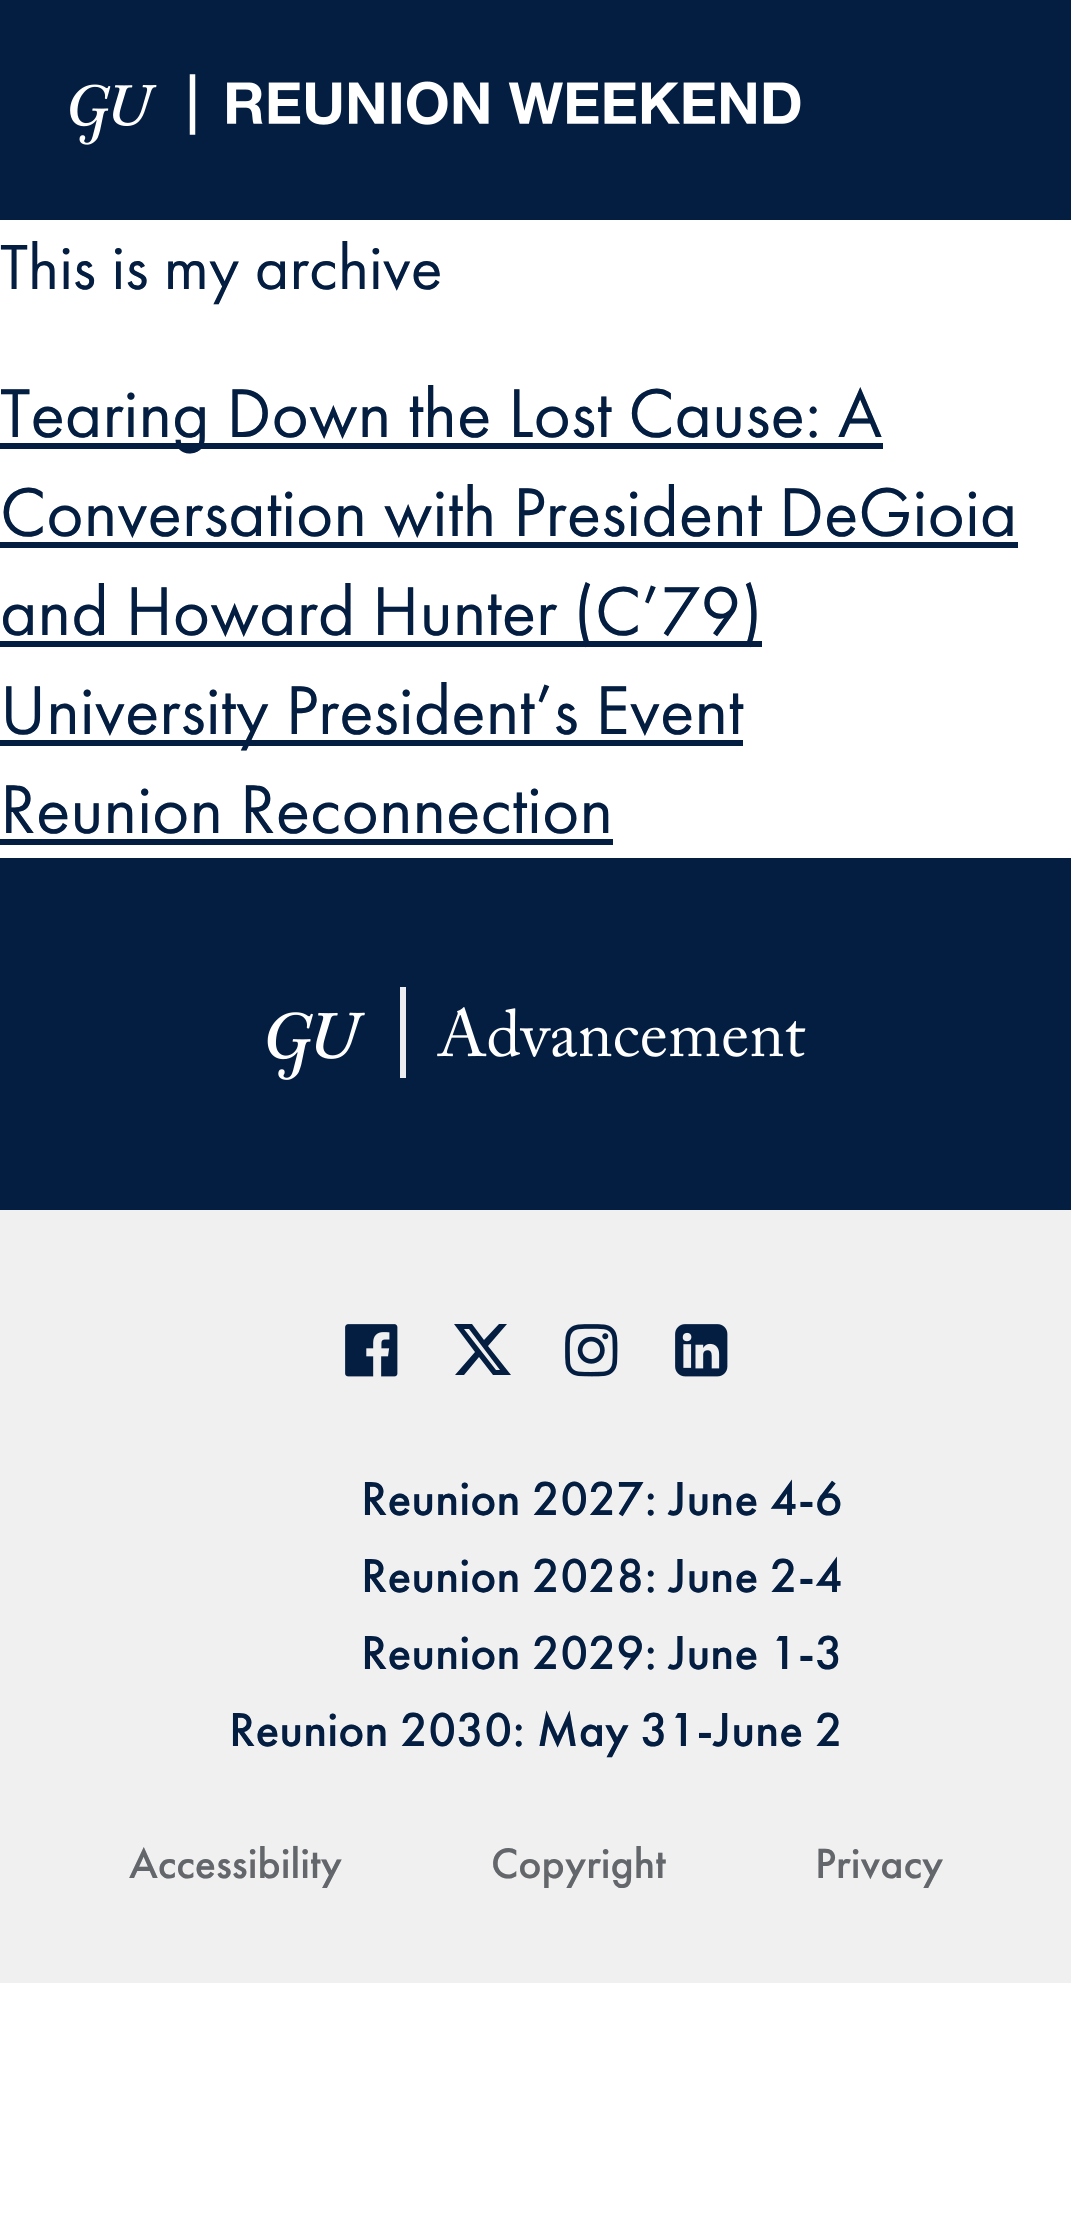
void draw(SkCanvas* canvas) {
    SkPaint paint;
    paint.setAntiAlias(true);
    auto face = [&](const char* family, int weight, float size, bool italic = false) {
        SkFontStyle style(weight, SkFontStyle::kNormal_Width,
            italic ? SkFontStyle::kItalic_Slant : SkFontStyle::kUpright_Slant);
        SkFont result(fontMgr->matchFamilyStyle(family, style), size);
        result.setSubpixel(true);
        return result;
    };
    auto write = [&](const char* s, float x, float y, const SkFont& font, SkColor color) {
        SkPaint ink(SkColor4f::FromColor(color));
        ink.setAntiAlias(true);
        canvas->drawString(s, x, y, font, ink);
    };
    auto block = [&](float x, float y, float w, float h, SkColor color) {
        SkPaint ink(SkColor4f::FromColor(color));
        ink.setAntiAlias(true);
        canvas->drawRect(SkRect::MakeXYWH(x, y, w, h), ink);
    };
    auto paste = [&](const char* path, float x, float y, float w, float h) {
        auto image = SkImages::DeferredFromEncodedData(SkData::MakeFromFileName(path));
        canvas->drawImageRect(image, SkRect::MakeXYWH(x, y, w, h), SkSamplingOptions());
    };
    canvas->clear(SK_ColorWHITE);
    block(0, 0, 1071, 220, SkColorSetRGB(4, 30, 66));
    paste("pic1.png", 70, 74, 731, 71);
    auto kFont1 = face("Futura PT", 400, 66);
    write("This is my archive", 0, 289, kFont1, SkColorSetRGB(4, 30, 66));
    block(0, 443, 883, 6, SkColorSetRGB(4, 30, 66));
    auto kFont2 = face("Futura PT", 400, 71.5f);
    write("Tearing Down the Lost Cause: A", 0, 437, kFont2, SkColorSetRGB(4, 30, 66));
    write("Conversation with President DeGioia", 0, 536, kFont2, SkColorSetRGB(4, 30, 66));
    block(0, 542, 1018, 6, SkColorSetRGB(4, 30, 66));
    block(0, 641, 762, 6, SkColorSetRGB(4, 30, 66));
    write("and Howard Hunter (C’79)", 0, 635, kFont2, SkColorSetRGB(4, 30, 66));
    block(0, 740, 743, 6, SkColorSetRGB(4, 30, 66));
    write("University President’s Event", 0, 734, kFont2, SkColorSetRGB(4, 30, 66));
    write("Reunion Reconnection", 0, 833, kFont2, SkColorSetRGB(4, 30, 66));
    block(0, 839, 613, 6, SkColorSetRGB(4, 30, 66));
    block(0, 858, 1071, 352, SkColorSetRGB(4, 30, 66));
    paste("pic2.png", 267, 987, 539, 93);
    block(0, 1210, 1071, 773, SkColorSetRGB(240, 240, 240));
    paste("pic3.png", 345, 1324, 53, 53);
    paint.setColor(SkColorSetRGB(4, 30, 66));
    canvas->drawPath(SkPathBuilder().moveTo(499, 1324).lineTo(507, 1324).lineTo(488, 1346).lineTo(511, 1375).lineTo(493, 1375).lineTo(479, 1357).lineTo(464, 1375).lineTo(455, 1375).lineTo(475, 1352).lineTo(454, 1324).lineTo(472, 1324).lineTo(484, 1340).close().moveTo(496, 1370).lineTo(500, 1370).lineTo(469, 1329).lineTo(464, 1329).close().detach(), paint);
    paste("pic4.png", 565, 1324, 53, 53);
    paste("pic5.png", 675, 1324, 53, 53);
    auto kFont3 = face("Futura PT", 500, 49.5f);
    write("Reunion 2027: June 4-6", 361, 1515, kFont3, SkColorSetRGB(4, 30, 66));
    write("Reunion 2028: June 2-4", 361, 1592, kFont3, SkColorSetRGB(4, 30, 66));
    write("Reunion 2029: June 1-3", 361, 1669, kFont3, SkColorSetRGB(4, 30, 66));
    write("Reunion 2030: May 31-June 2", 229, 1746, kFont3, SkColorSetRGB(4, 30, 66));
    auto kFont4 = face("Futura PT", 500, 44);
    write("Accessibility", 129, 1878, kFont4, SkColorSetRGB(99, 102, 106));
    write("Copyright", 491, 1878, kFont4, SkColorSetRGB(99, 102, 106));
    write("Privacy", 815, 1878, kFont4, SkColorSetRGB(99, 102, 106));
}
